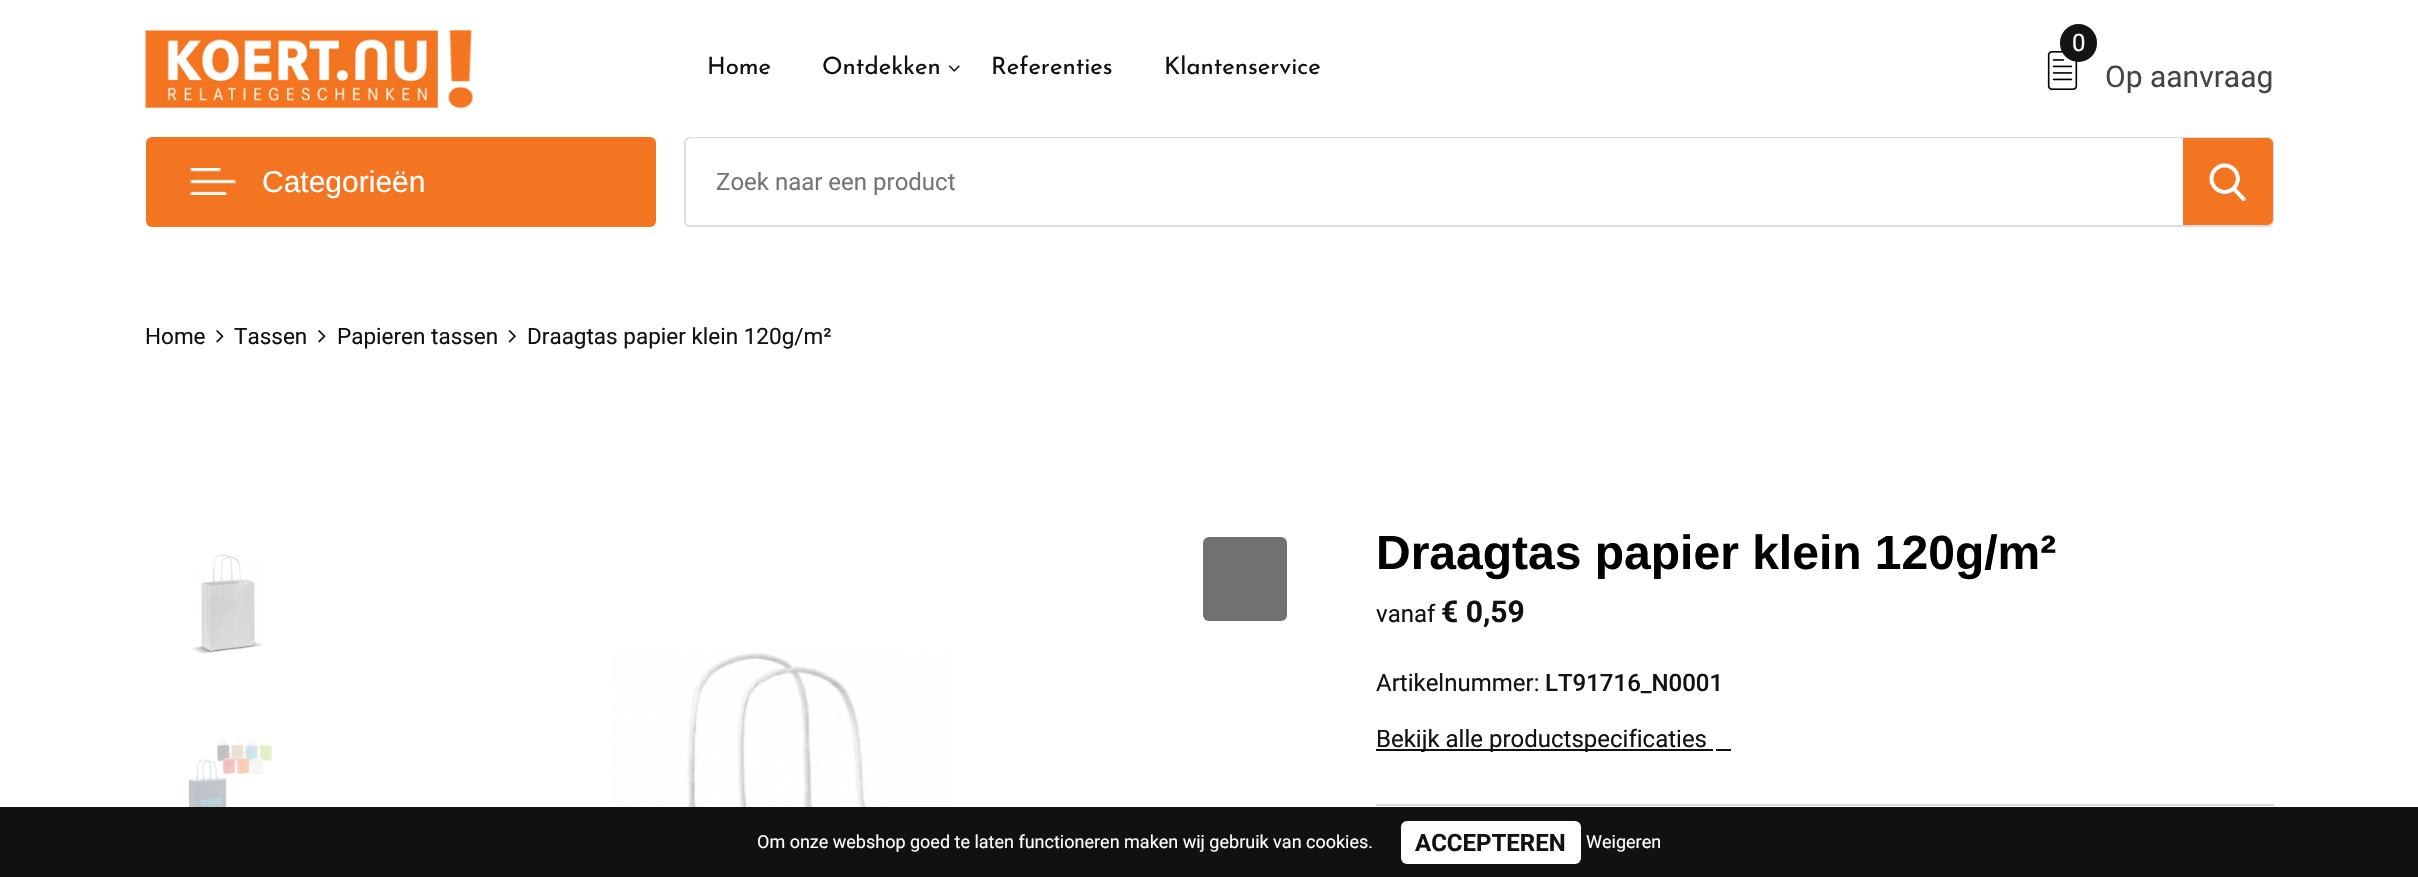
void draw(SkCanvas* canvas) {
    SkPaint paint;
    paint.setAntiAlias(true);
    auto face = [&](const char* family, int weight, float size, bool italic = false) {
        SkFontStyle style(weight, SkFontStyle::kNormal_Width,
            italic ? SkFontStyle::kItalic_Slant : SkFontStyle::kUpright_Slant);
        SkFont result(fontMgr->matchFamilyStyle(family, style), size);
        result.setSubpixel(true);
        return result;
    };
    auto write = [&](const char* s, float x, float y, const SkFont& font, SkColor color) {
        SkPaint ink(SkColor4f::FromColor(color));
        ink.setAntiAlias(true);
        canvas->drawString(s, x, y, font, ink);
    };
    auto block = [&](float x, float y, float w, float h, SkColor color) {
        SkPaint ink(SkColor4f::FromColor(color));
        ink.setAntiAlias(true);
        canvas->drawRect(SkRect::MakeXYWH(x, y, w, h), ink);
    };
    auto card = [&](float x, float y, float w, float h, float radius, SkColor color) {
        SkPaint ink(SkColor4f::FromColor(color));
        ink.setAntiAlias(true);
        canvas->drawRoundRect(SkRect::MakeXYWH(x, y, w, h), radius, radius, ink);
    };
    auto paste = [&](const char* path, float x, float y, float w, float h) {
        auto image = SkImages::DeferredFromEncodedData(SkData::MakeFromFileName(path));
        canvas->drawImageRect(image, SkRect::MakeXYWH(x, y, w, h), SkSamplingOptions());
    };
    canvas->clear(SK_ColorWHITE);
    paste("pic1.png", 145, 30, 328, 78);
    auto kFont1 = face("Josefin Sans", 400, 24);
    write("Home", 707, 74, kFont1, SkColorSetRGB(17, 17, 17));
    write("Ontdekken", 822, 74, kFont1, SkColorSetRGB(17, 17, 17));
    paste("pic2.png", 948, 65, 12, 7);
    write("Referenties", 991, 74, kFont1, SkColorSetRGB(17, 17, 17));
    write("Klantenservice", 1164, 74, kFont1, SkColorSetRGB(17, 17, 17));
    paste("pic3.png", 2047, 51, 31, 39);
    card(2060, 24, 37, 38, 18.5f, SkColorSetRGB(20, 20, 20));
    auto kFont2 = face("Roboto", 400, 24);
    write("0", 2072, 51, kFont2, SK_ColorWHITE);
    auto kFont3 = face("Roboto", 400, 30);
    write("Op aanvraag", 2105, 87, kFont3, SkColorSetRGB(68, 68, 68));
    card(146, 137, 510, 90, 6, SkColorSetRGB(244, 117, 33));
    paste("pic4.png", 190, 168, 46, 27);
    auto kFont4 = face("Liberation Sans", 400, 30);
    write("Categorieën", 262, 192, kFont4, SK_ColorWHITE);
    paint.setStyle(SkPaint::kStroke_Style);
    paint.setStrokeWidth(2);
    paint.setColor(SkColorSetRGB(221, 221, 221));
    canvas->drawRoundRect(SkRect::MakeXYWH(685, 138, 1588, 88), 5, 5, paint);
    paint.setStyle(SkPaint::kFill_Style);
    paint.setColor(SK_ColorWHITE);
    canvas->drawPath(SkPathBuilder().moveTo(692, 138).lineTo(2183, 138).lineTo(2183, 225).lineTo(692, 225).cubicTo(688.5f, 225, 686, 222.5f, 686, 219).lineTo(686, 144).cubicTo(686, 140.5f, 688.5f, 138, 692, 138).close().detach(), paint);
    write("Zoek naar een product", 716, 190, kFont2, SkColorSetRGB(117, 117, 117));
    paint.setColor(SkColorSetRGB(244, 117, 33));
    canvas->drawPath(SkPathBuilder().moveTo(2183, 138).lineTo(2267, 138).cubicTo(2270.5f, 138, 2273, 140.5f, 2273, 144).lineTo(2273, 219).cubicTo(2273, 222.5f, 2270.5f, 225, 2267, 225).lineTo(2183, 225).close().detach(), paint);
    paste("pic5.png", 2209, 163, 37, 38);
    auto kFont5 = face("Roboto", 400, 22.5f);
    write("Home", 145, 344, kFont5, SkColorSetRGB(17, 17, 17));
    paste("pic6.png", 216, 330, 8, 13);
    write("Tassen", 234, 344, kFont5, SkColorSetRGB(17, 17, 17));
    paste("pic6.png", 318, 330, 8, 13);
    write("Papieren tassen", 337, 344, kFont5, SkColorSetRGB(17, 17, 17));
    paste("pic7.png", 508, 330, 8, 13);
    write("Draagtas papier klein 120g/m²", 527, 344, kFont5, SkColorSetRGB(17, 17, 17));
    paste("pic8.png", 192, 554, 72, 100);
    paste("pic9.png", 184, 739, 89, 68);
    card(1203, 537, 84, 84, 6, SkColorSetRGB(113, 113, 113));
    paste("pic10.png", 611, 652, 341, 155);
    auto kFont6 = face("Liberation Sans", 700, 48);
    write("Draagtas papier klein 120g/m²", 1376, 569, kFont6, SkColorSetRGB(1, 1, 1));
    write("vanaf", 1376, 622, kFont2, SkColorSetRGB(17, 17, 17));
    auto kFont7 = face("Roboto", 700, 30);
    write("€ 0,59", 1441, 622, kFont7, SkColorSetRGB(17, 17, 17));
    block(1376, 804, 898, 2, SkColorSetRGB(221, 221, 221));
    write("Artikelnummer:", 1376, 691, kFont2, SkColorSetRGB(17, 17, 17));
    auto kFont8 = face("Roboto", 500, 24);
    write("LT91716_N0001", 1545, 691, kFont8, SkColorSetRGB(17, 17, 17));
    block(1376, 749, 337, 2, SkColorSetRGB(17, 17, 17));
    write("Bekijk alle productspecificaties", 1376, 747, kFont2, SkColorSetRGB(17, 17, 17));
    block(1716, 749, 15, 2, SkColorSetRGB(17, 17, 17));
    block(0, 807, 2418, 70, SkColorSetRGB(17, 17, 17));
    auto kFont9 = face("Roboto", 400, 18);
    write("Om onze webshop goed te laten functioneren maken wij gebruik van cookies.", 757, 848, kFont9, SK_ColorWHITE);
    card(1401, 821, 180, 43, 6, SK_ColorWHITE);
    auto kFont10 = face("Roboto", 700, 24);
    write("ACCEPTEREN", 1415, 851, kFont10, SkColorSetRGB(17, 17, 17));
    write("Weigeren", 1586, 848, kFont9, SK_ColorWHITE);
}
